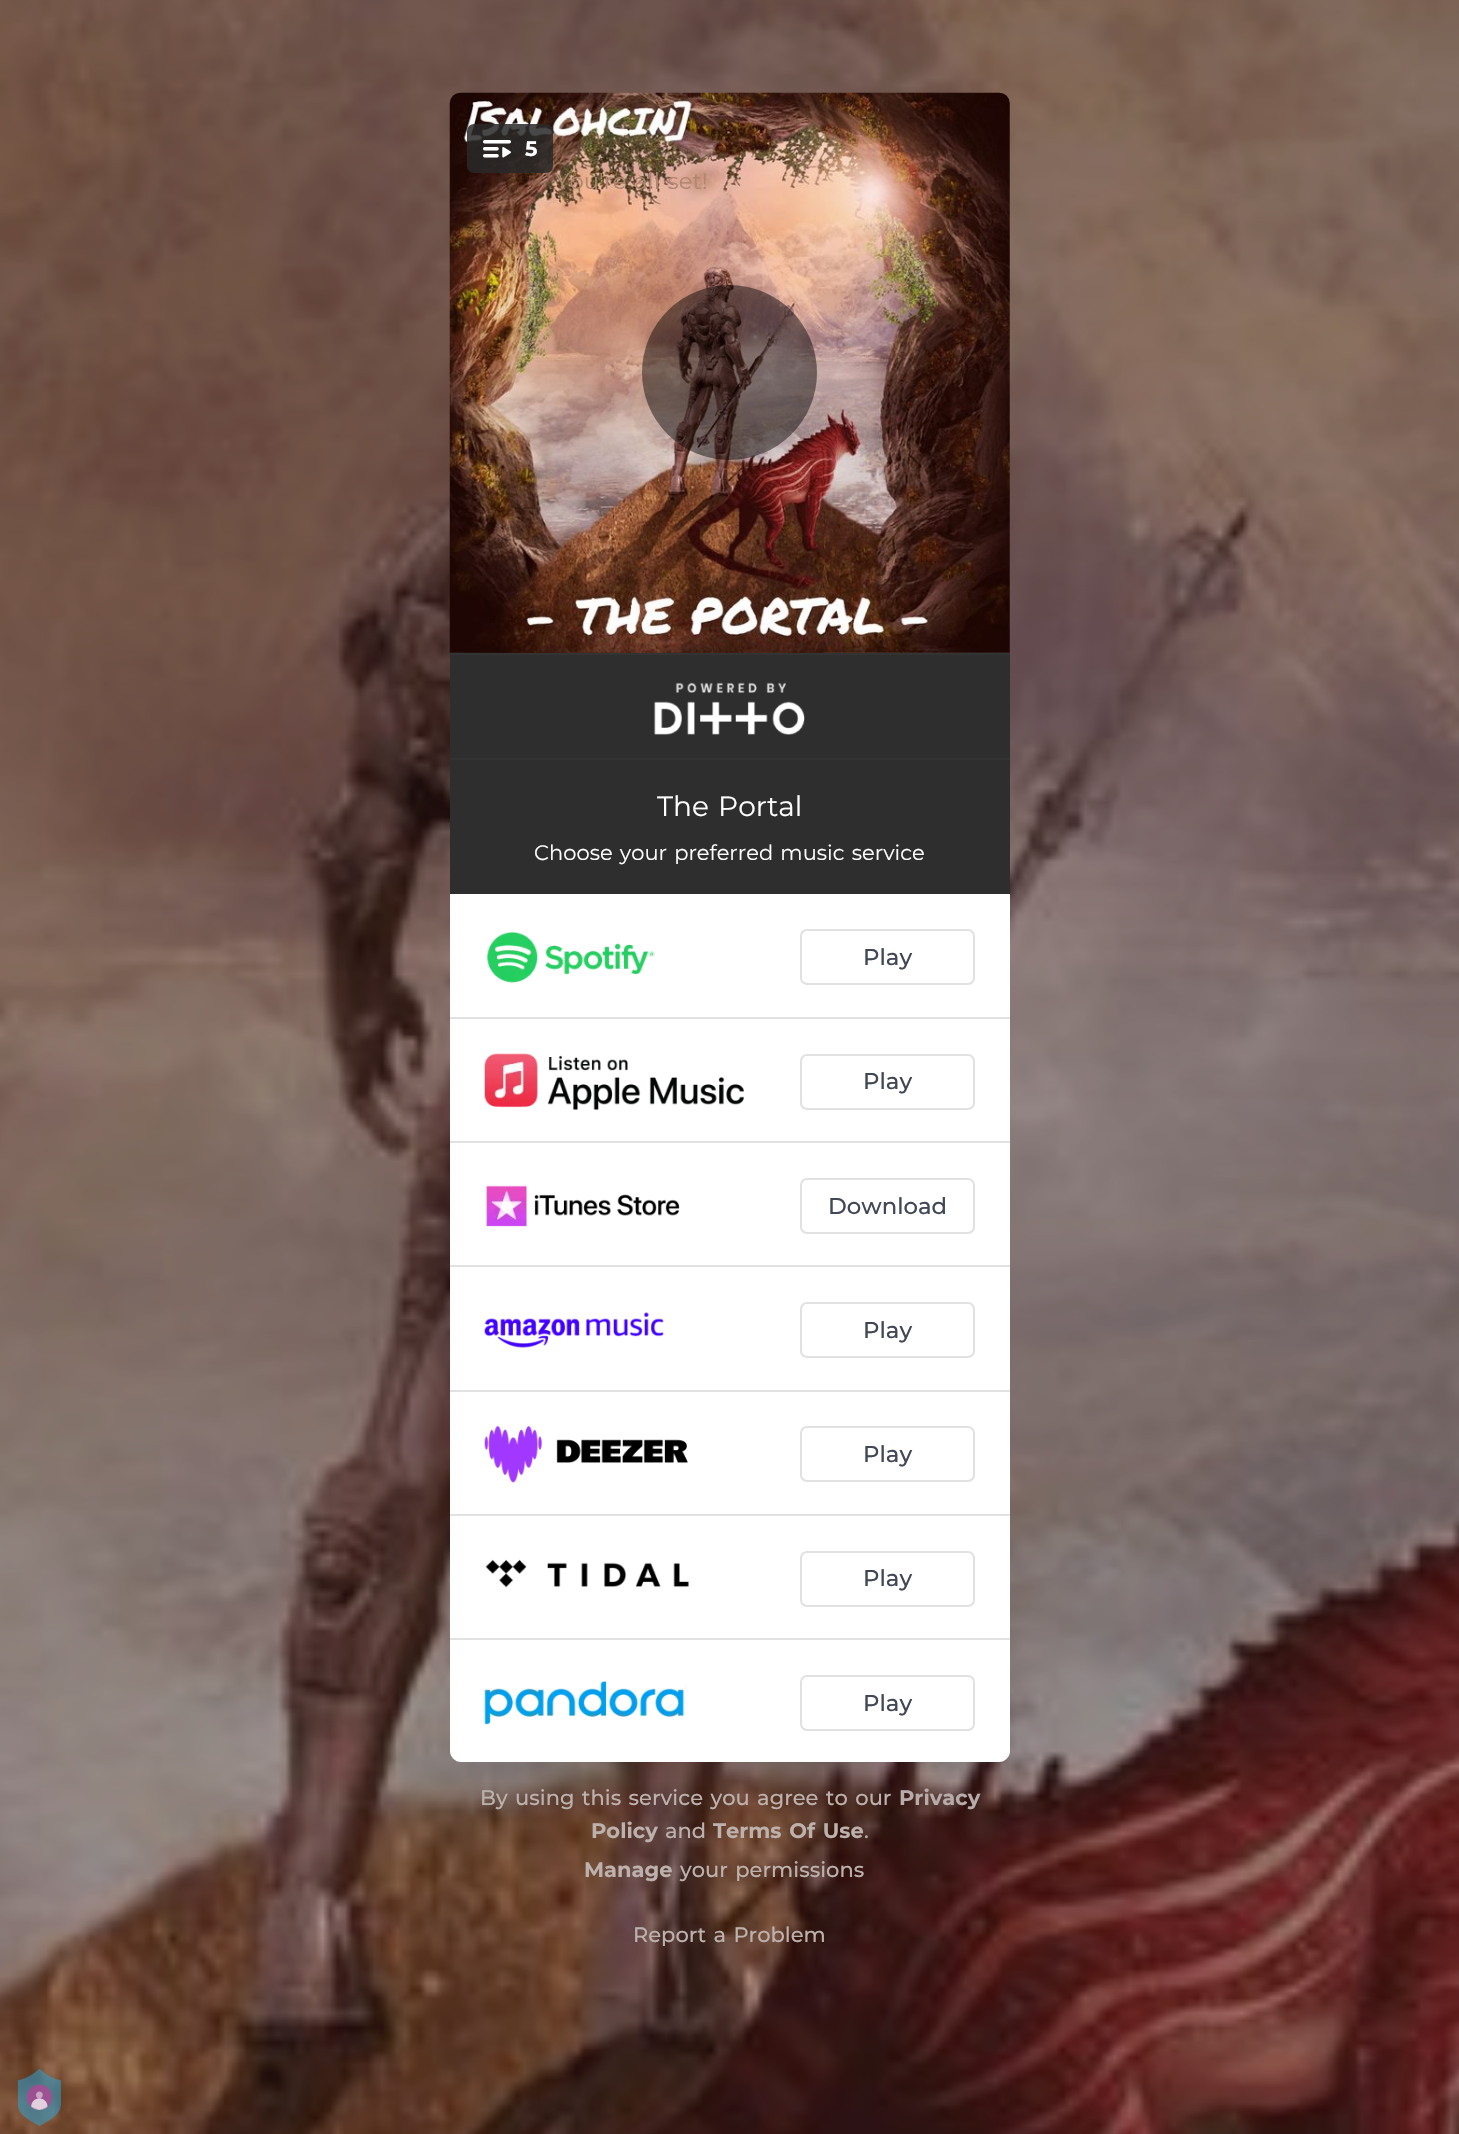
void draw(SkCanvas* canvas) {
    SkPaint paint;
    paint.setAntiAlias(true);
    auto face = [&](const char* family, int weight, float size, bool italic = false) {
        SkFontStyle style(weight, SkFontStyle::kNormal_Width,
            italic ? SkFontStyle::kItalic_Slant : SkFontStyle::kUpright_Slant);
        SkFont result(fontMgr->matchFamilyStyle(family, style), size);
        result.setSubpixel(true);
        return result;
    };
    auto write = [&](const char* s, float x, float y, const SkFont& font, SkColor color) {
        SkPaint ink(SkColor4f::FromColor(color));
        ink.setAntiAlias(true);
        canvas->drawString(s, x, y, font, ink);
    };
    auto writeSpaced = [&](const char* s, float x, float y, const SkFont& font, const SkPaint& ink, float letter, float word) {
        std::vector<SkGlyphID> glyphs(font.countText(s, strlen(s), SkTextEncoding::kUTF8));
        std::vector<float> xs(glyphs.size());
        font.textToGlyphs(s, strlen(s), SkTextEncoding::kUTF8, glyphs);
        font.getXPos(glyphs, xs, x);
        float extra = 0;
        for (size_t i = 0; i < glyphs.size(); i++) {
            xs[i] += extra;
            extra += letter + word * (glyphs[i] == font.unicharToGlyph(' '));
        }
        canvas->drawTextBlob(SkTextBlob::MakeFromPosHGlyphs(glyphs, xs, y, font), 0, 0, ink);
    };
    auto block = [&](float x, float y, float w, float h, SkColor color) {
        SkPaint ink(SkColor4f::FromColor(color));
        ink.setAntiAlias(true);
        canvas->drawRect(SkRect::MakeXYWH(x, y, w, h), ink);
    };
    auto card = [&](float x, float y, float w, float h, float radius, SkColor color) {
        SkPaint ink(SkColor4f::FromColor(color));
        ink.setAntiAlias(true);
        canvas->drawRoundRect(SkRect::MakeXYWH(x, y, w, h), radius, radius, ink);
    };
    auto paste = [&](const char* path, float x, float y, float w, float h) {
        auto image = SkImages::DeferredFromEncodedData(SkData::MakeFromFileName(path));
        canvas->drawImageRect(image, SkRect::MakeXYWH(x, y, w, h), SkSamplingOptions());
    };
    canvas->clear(SK_ColorWHITE);
    paste("pic1.png", 0, 0, 1459, 2134);
    paste("pic2.png", 449, 92, 561, 561);
    card(467, 124, 86, 49, 7, SkColorSetARGB(217, 40, 40, 40));
    paste("pic3.png", 483, 140, 28, 18);
    auto kFont1 = face("Montserrat", 700, 21);
    write("5", 525, 156, kFont1, SK_ColorWHITE);
    paint.setColor(SkColorSetARGB(115, 0, 0, 0));
    canvas->drawCircle(729.5f, 372.5f, 87.5f, paint);
    auto kFont2 = face("Montserrat", 400, 22.75f);
    paint.setColor(SkColorSetRGB(176, 134, 111));
    writeSpaced("You're all set!", 555, 189, kFont2, paint, 0, 1.75f);
    block(450, 655, 560, 103, SkColorSetRGB(46, 46, 46));
    block(450, 653, 560, 2, SkColorSetRGB(51, 51, 51));
    block(450, 758, 560, 2, SkColorSetRGB(51, 51, 51));
    paste("pic4.png", 654, 682, 151, 53);
    block(450, 760, 560, 134, SkColorSetRGB(46, 46, 46));
    auto kFont3 = face("Montserrat", 400, 28);
    paint.setColor(SK_ColorWHITE);
    writeSpaced("The Portal", 657, 816, kFont3, paint, 0, 1.75f);
    auto kFont4 = face("Montserrat", 400, 21);
    writeSpaced("Choose your preferred music service", 534, 860, kFont4, paint, 0, 1.75f);
    canvas->drawPath(SkPathBuilder().moveTo(450, 894).lineTo(1010, 894).lineTo(1010, 1751).cubicTo(1010, 1757, 1005, 1762, 999, 1762).lineTo(461, 1762).cubicTo(455, 1762, 450, 1757, 450, 1751).close().detach(), paint);
    block(450, 1017, 560, 2, SkColorSetRGB(225, 225, 228));
    paste("pic5.png", 486, 931, 169, 52);
    paint.setStyle(SkPaint::kStroke_Style);
    paint.setStrokeWidth(2);
    paint.setColor(SkColorSetRGB(225, 225, 228));
    canvas->drawRoundRect(SkRect::MakeXYWH(801, 930, 173, 54), 6, 6, paint);
    auto kFont5 = face("Montserrat", 500, 22.75f);
    write("Play", 863, 965, kFont5, SkColorSetRGB(65, 71, 84));
    block(450, 1141, 560, 2, SkColorSetRGB(225, 225, 228));
    paste("pic6.png", 484, 1053, 260, 57);
    canvas->drawRoundRect(SkRect::MakeXYWH(801, 1055, 173, 54), 6, 6, paint);
    write("Play", 863, 1089, kFont5, SkColorSetRGB(65, 71, 84));
    block(450, 1265, 560, 2, SkColorSetRGB(225, 225, 228));
    paste("pic7.png", 486, 1185, 194, 42);
    canvas->drawRoundRect(SkRect::MakeXYWH(801, 1179, 173, 54), 6, 6, paint);
    write("Download", 828, 1214, kFont5, SkColorSetRGB(65, 71, 84));
    block(450, 1390, 560, 2, SkColorSetRGB(225, 225, 228));
    paste("pic8.png", 484, 1312, 180, 36);
    canvas->drawRoundRect(SkRect::MakeXYWH(801, 1303, 173, 54), 6, 6, paint);
    write("Play", 863, 1338, kFont5, SkColorSetRGB(65, 71, 84));
    block(450, 1514, 560, 2, SkColorSetRGB(225, 225, 228));
    paste("pic9.png", 484, 1426, 204, 57);
    canvas->drawRoundRect(SkRect::MakeXYWH(801, 1427, 173, 54), 6, 6, paint);
    write("Play", 863, 1462, kFont5, SkColorSetRGB(65, 71, 84));
    block(450, 1638, 560, 2, SkColorSetRGB(225, 225, 228));
    paste("pic10.png", 485, 1559, 204, 29);
    canvas->drawRoundRect(SkRect::MakeXYWH(801, 1552, 173, 54), 6, 6, paint);
    write("Play", 863, 1586, kFont5, SkColorSetRGB(65, 71, 84));
    paste("pic11.png", 484, 1681, 202, 44);
    canvas->drawRoundRect(SkRect::MakeXYWH(801, 1676, 173, 54), 6, 6, paint);
    write("Play", 863, 1711, kFont5, SkColorSetRGB(65, 71, 84));
    auto kFont6 = face("Montserrat", 500, 21);
    paint.setStyle(SkPaint::kFill_Style);
    paint.setColor(SkColorSetRGB(189, 177, 173));
    writeSpaced("By using this service you agree to our", 480, 1805, kFont6, paint, 0, 1.75f);
    write("Privacy", 899, 1805, kFont1, SkColorSetRGB(183, 172, 170));
    write("Policy", 591, 1838, kFont1, SkColorSetRGB(189, 177, 173));
    write("and", 665, 1838, kFont6, SkColorSetRGB(189, 177, 173));
    writeSpaced("Terms Of Use", 713, 1838, kFont1, paint, 0, 1.75f);
    write(".", 864, 1838, kFont6, SkColorSetRGB(183, 172, 170));
    write("Manage", 584, 1877, kFont1, SkColorSetRGB(189, 177, 173));
    writeSpaced("your permissions", 680, 1877, kFont6, paint, 0, 1.75f);
    writeSpaced("Report a Problem", 633, 1942, kFont6, paint, 0, 1.75f);
    paste("pic12.png", 18, 2069, 43, 57);
}
